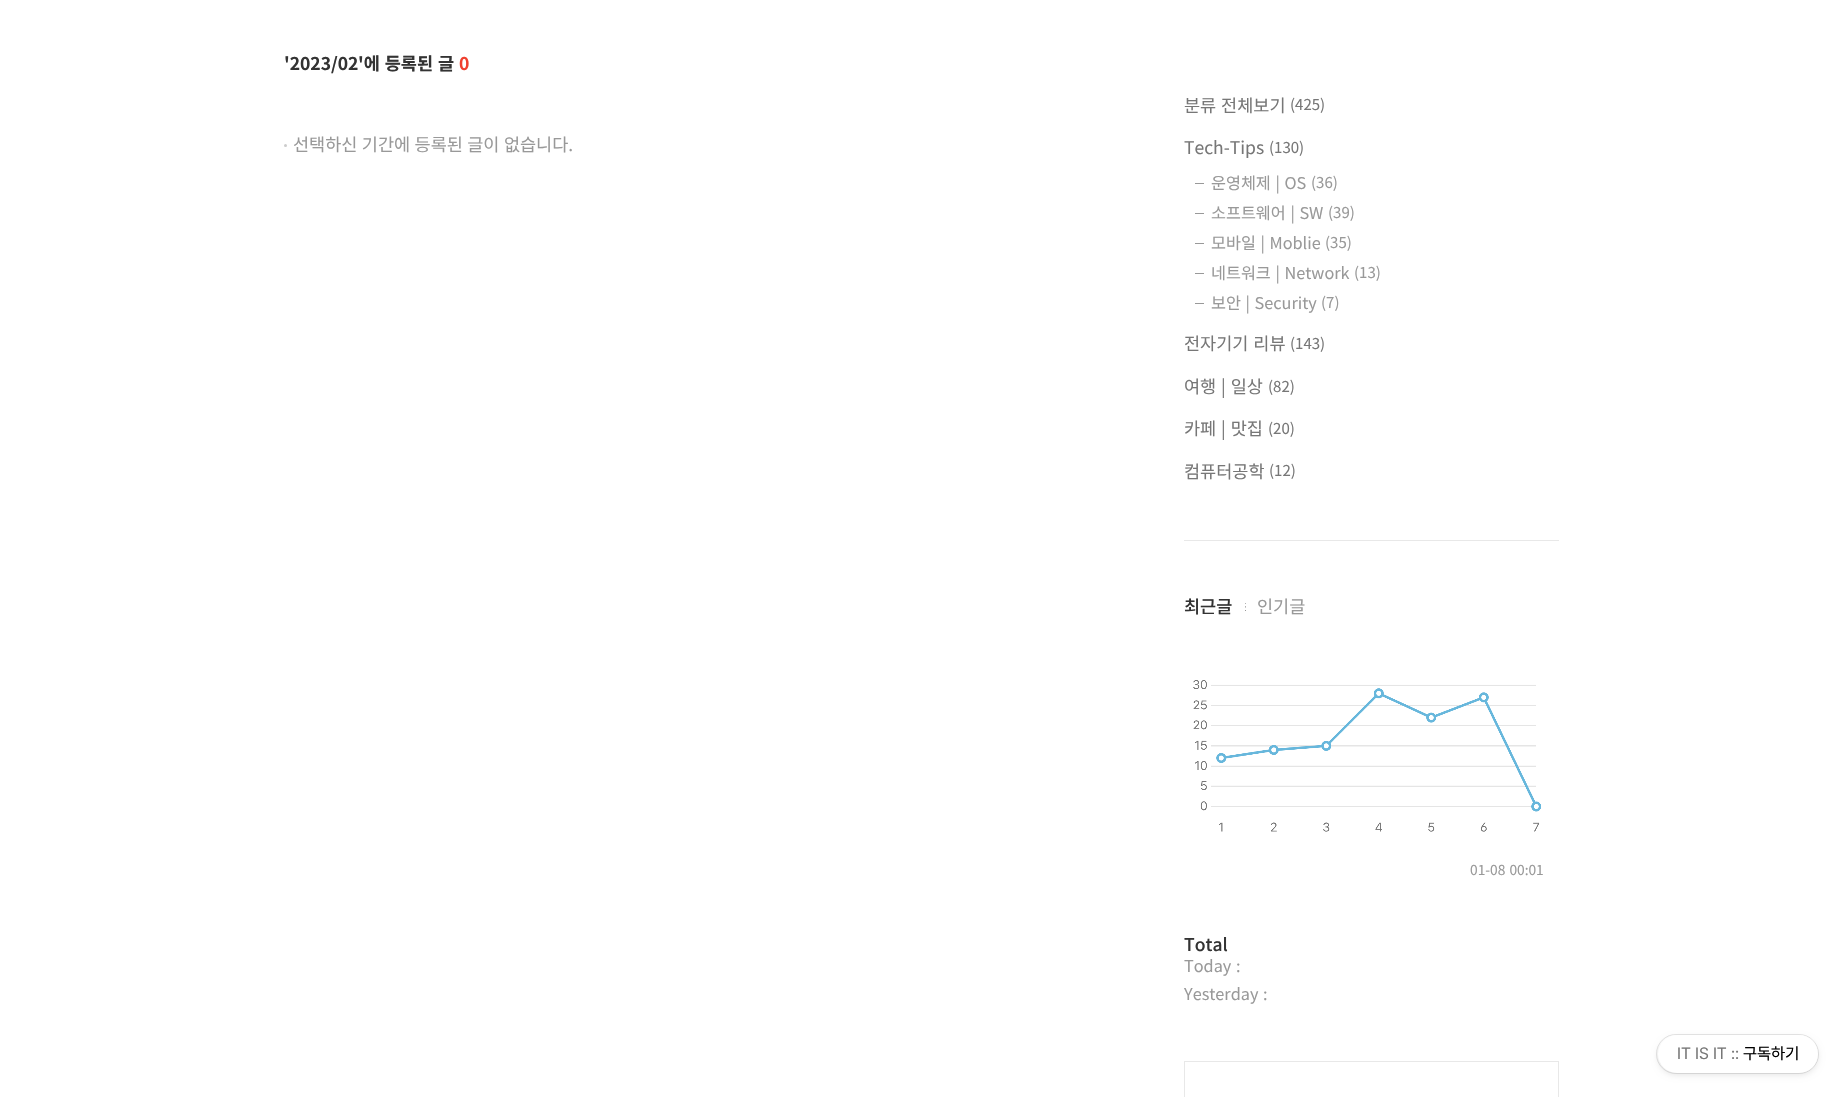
void draw(SkCanvas* canvas) {
    SkPaint paint;
    paint.setAntiAlias(true);
    auto face = [&](const char* family, int weight, float size, bool italic = false) {
        SkFontStyle style(weight, SkFontStyle::kNormal_Width,
            italic ? SkFontStyle::kItalic_Slant : SkFontStyle::kUpright_Slant);
        SkFont result(fontMgr->matchFamilyStyle(family, style), size);
        result.setSubpixel(true);
        return result;
    };
    auto write = [&](const char* s, float x, float y, const SkFont& font, SkColor color) {
        SkPaint ink(SkColor4f::FromColor(color));
        ink.setAntiAlias(true);
        canvas->drawString(s, x, y, font, ink);
    };
    auto writeSpaced = [&](const char* s, float x, float y, const SkFont& font, const SkPaint& ink, float letter, float word) {
        std::vector<SkGlyphID> glyphs(font.countText(s, strlen(s), SkTextEncoding::kUTF8));
        std::vector<float> xs(glyphs.size());
        font.textToGlyphs(s, strlen(s), SkTextEncoding::kUTF8, glyphs);
        font.getXPos(glyphs, xs, x);
        float extra = 0;
        for (size_t i = 0; i < glyphs.size(); i++) {
            xs[i] += extra;
            extra += letter + word * (glyphs[i] == font.unicharToGlyph(' '));
        }
        canvas->drawTextBlob(SkTextBlob::MakeFromPosHGlyphs(glyphs, xs, y, font), 0, 0, ink);
    };
    auto block = [&](float x, float y, float w, float h, SkColor color) {
        SkPaint ink(SkColor4f::FromColor(color));
        ink.setAntiAlias(true);
        canvas->drawRect(SkRect::MakeXYWH(x, y, w, h), ink);
    };
    auto card = [&](float x, float y, float w, float h, float radius, SkColor color) {
        SkPaint ink(SkColor4f::FromColor(color));
        ink.setAntiAlias(true);
        canvas->drawRoundRect(SkRect::MakeXYWH(x, y, w, h), radius, radius, ink);
    };
    auto paste = [&](const char* path, float x, float y, float w, float h) {
        auto image = SkImages::DeferredFromEncodedData(SkData::MakeFromFileName(path));
        canvas->drawImageRect(image, SkRect::MakeXYWH(x, y, w, h), SkSamplingOptions());
    };
    canvas->clear(SK_ColorWHITE);
    auto kFont1 = face("Noto Sans KR", 700, 17.5f);
    write("'2023/02", 284, 70, kFont1, SkColorSetRGB(51, 51, 51));
    paint.setColor(SkColorSetRGB(51, 51, 51));
    writeSpaced("'에 등록된 글", 358, 70, kFont1, paint, 0, 1);
    write("0", 459, 70, kFont1, SkColorSetRGB(239, 64, 47));
    paint.setColor(SkColorSetRGB(204, 204, 204));
    canvas->drawCircle(285.5f, 145.5f, 1.5f, paint);
    auto kFont2 = face("Noto Sans KR", 400, 17.5f);
    paint.setColor(SkColorSetRGB(153, 153, 153));
    writeSpaced("선택하신 기간에 등록된 글이 없습니다.", 293, 151, kFont2, paint, 0, 0.5f);
    block(1184, 540, 375, 1, SkColorSetRGB(232, 232, 232));
    paint.setColor(SkColorSetRGB(119, 119, 119));
    writeSpaced("분류 전체보기", 1184, 112, kFont2, paint, 0, 1);
    auto kFont3 = face("Noto Sans KR", 400, 15);
    write("(425)", 1290, 110, kFont3, SkColorSetRGB(119, 119, 119));
    write("Tech-Tips", 1184, 154, kFont2, SkColorSetRGB(119, 119, 119));
    write("(130)", 1269, 153, kFont3, SkColorSetRGB(119, 119, 119));
    block(1195, 183, 9, 1, SkColorSetRGB(153, 153, 153));
    auto kFont4 = face("Noto Sans KR", 400, 16.25f);
    paint.setColor(SkColorSetRGB(153, 153, 153));
    writeSpaced("운영체제 | OS", 1211, 189, kFont4, paint, 0, 1);
    write("(36)", 1311, 188, kFont3, SkColorSetRGB(153, 153, 153));
    block(1195, 213, 9, 1, SkColorSetRGB(153, 153, 153));
    writeSpaced("소프트웨어 | SW", 1211, 219, kFont4, paint, 0, 1);
    write("(39)", 1328, 218, kFont3, SkColorSetRGB(153, 153, 153));
    block(1195, 243, 9, 1, SkColorSetRGB(153, 153, 153));
    writeSpaced("모바일 | Moblie", 1211, 249, kFont4, paint, 0, 1);
    write("(35)", 1325, 248, kFont3, SkColorSetRGB(153, 153, 153));
    block(1195, 273, 9, 1, SkColorSetRGB(153, 153, 153));
    writeSpaced("네트워크 | Network", 1211, 279, kFont4, paint, 0, 1);
    write("(13)", 1354, 278, kFont3, SkColorSetRGB(153, 153, 153));
    block(1195, 303, 9, 1, SkColorSetRGB(153, 153, 153));
    writeSpaced("보안 | Security", 1211, 309, kFont4, paint, 0, 1);
    write("(7)", 1321, 308, kFont3, SkColorSetRGB(153, 153, 153));
    paint.setColor(SkColorSetRGB(119, 119, 119));
    writeSpaced("전자기기 리뷰", 1184, 350, kFont2, paint, 0, 1);
    write("(143)", 1290, 349, kFont3, SkColorSetRGB(119, 119, 119));
    writeSpaced("여행 | 일상", 1184, 393, kFont2, paint, 0, 1);
    write("(82)", 1268, 392, kFont3, SkColorSetRGB(119, 119, 119));
    writeSpaced("카페 | 맛집", 1184, 435, kFont2, paint, 0, 1);
    write("(20)", 1268, 434, kFont3, SkColorSetRGB(119, 119, 119));
    write("컴퓨터공학", 1184, 478, kFont2, SkColorSetRGB(119, 119, 119));
    write("(12)", 1269, 476, kFont3, SkColorSetRGB(119, 119, 119));
    auto kFont5 = face("Noto Sans KR", 500, 17.5f);
    write("최근글", 1184, 613, kFont5, SkColorSetRGB(51, 51, 51));
    paste("pic1.png", 1245, 603, 1, 8);
    write("인기글", 1257, 613, kFont2, SkColorSetRGB(153, 153, 153));
    paste("pic2.png", 1193, 680, 348, 152);
    auto kFont6 = face("Noto Sans KR", 400, 13.75f);
    paint.setColor(SkColorSetRGB(153, 153, 153));
    writeSpaced("01-08 00:01", 1470, 875, kFont6, paint, 0, 1);
    write("Total", 1184, 951, kFont5, SkColorSetRGB(51, 51, 51));
    writeSpaced("Today :", 1184, 972, kFont4, paint, 0, 1);
    writeSpaced("Yesterday :", 1184, 1000, kFont4, paint, 0, 1);
    paint.setStyle(SkPaint::kStroke_Style);
    paint.setStrokeWidth(1);
    paint.setColor(SkColorSetRGB(232, 232, 232));
    canvas->drawRect(SkRect::MakeXYWH(1184.5f, 1061.5f, 374, 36), paint);
    paint.setStyle(SkPaint::kFill_Style);
    paint.setColor(SkColorSetARGB(26, 0, 0, 0));
    paint.setMaskFilter(SkMaskFilter::MakeBlur(kNormal_SkBlurStyle, 3));
    canvas->drawRoundRect(SkRect::MakeXYWH(1658, 1038, 160, 37), 18.5f, 18.5f, paint);
    paint.setMaskFilter(nullptr);
    paint.setStyle(SkPaint::kStroke_Style);
    canvas->drawRoundRect(SkRect::MakeXYWH(1656.5f, 1034.5f, 162, 39), 19.5f, 19.5f, paint);
    card(1658, 1035, 160, 38, 19, SK_ColorWHITE);
    auto kFont7 = face("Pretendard", 400, 16.25f);
    write("IT IS IT ::", 1677, 1059, kFont7, SkColorSetRGB(119, 119, 119));
    write("구독하기", 1743, 1059, kFont7, SK_ColorBLACK);
}
